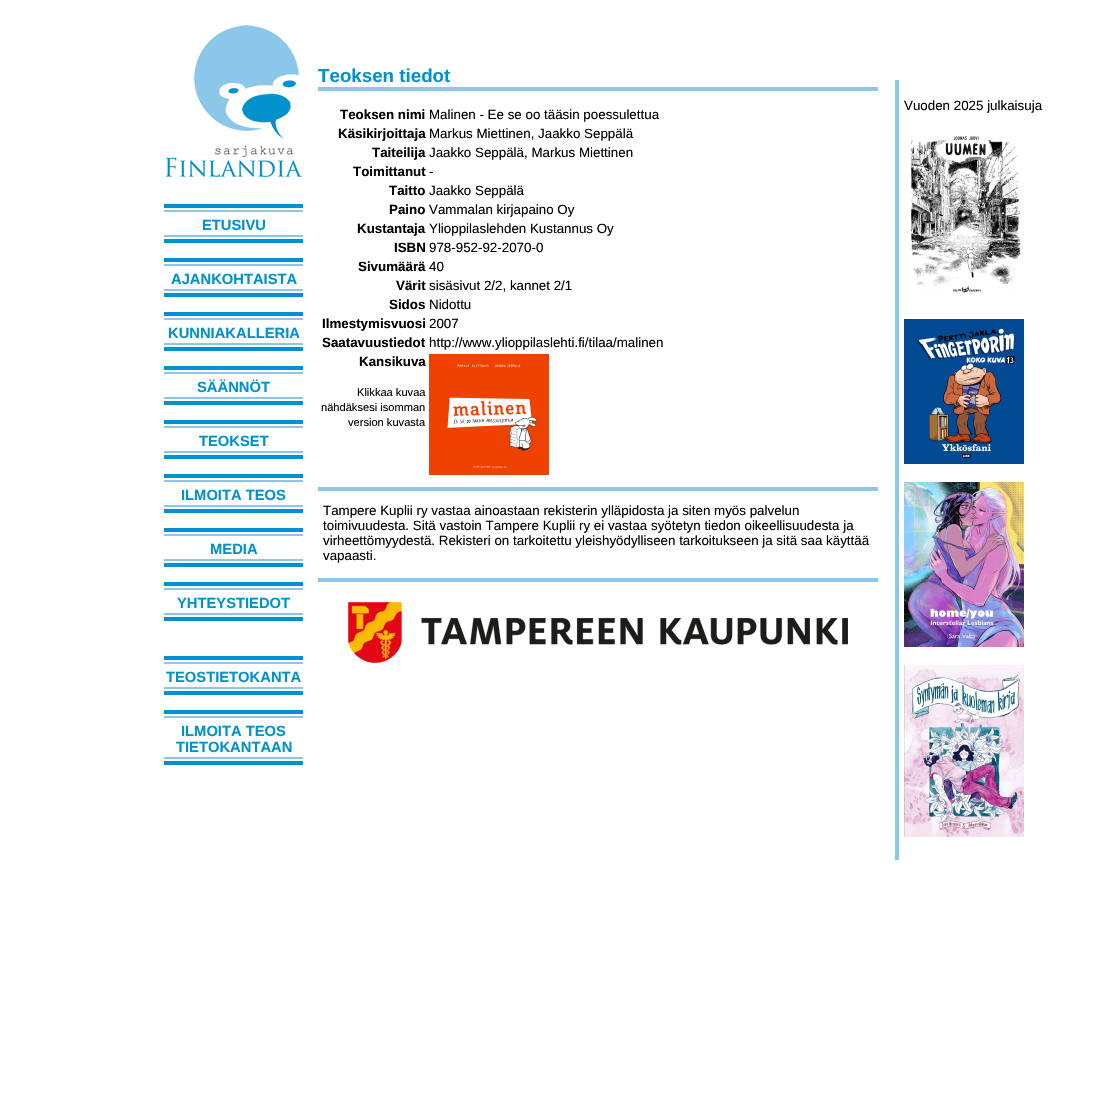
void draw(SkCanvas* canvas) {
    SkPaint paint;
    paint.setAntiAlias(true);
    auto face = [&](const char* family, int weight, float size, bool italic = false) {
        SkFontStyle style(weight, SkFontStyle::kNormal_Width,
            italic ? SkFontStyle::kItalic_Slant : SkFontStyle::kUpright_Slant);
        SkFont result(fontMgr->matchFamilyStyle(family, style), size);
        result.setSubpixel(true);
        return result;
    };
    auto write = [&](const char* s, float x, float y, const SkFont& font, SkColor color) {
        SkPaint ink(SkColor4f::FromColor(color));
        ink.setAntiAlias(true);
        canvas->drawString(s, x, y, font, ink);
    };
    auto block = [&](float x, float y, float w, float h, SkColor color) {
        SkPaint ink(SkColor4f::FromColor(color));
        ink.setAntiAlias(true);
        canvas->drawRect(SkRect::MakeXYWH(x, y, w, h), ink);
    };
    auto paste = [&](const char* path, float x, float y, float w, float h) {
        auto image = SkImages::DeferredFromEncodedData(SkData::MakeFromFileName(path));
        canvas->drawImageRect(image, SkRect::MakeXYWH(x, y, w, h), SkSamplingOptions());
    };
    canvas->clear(SK_ColorWHITE);
    block(318, 87, 560, 4, SkColorSetRGB(139, 199, 233));
    auto kFont1 = face("Liberation Sans", 700, 18.75f);
    write("Teoksen tiedot", 318, 82, kFont1, SkColorSetRGB(0, 146, 206));
    auto kFont2 = face("Liberation Sans", 700, 13.35f);
    write("Teoksen nimi", 340, 119, kFont2, SK_ColorBLACK);
    auto kFont3 = face("Liberation Sans", 400, 13.35f);
    write("Malinen - Ee se oo tääsin poessulettua", 429, 119, kFont3, SK_ColorBLACK);
    write("Käsikirjoittaja", 338, 138, kFont2, SK_ColorBLACK);
    write("Markus Miettinen, Jaakko Seppälä", 429, 138, kFont3, SK_ColorBLACK);
    write("Taiteilija", 372, 157, kFont2, SK_ColorBLACK);
    write("Jaakko Seppälä, Markus Miettinen", 429, 157, kFont3, SK_ColorBLACK);
    write("Toimittanut", 353, 176, kFont2, SK_ColorBLACK);
    write("-", 429, 176, kFont3, SK_ColorBLACK);
    write("Taitto", 389, 195, kFont2, SK_ColorBLACK);
    write("Jaakko Seppälä", 429, 195, kFont3, SK_ColorBLACK);
    write("Paino", 389, 214, kFont2, SK_ColorBLACK);
    write("Vammalan kirjapaino Oy", 429, 214, kFont3, SK_ColorBLACK);
    write("Kustantaja", 357, 233, kFont2, SK_ColorBLACK);
    write("Ylioppilaslehden Kustannus Oy", 429, 233, kFont3, SK_ColorBLACK);
    write("ISBN", 394, 252, kFont2, SK_ColorBLACK);
    write("978-952-92-2070-0", 429, 252, kFont3, SK_ColorBLACK);
    write("Sivumäärä", 358, 271, kFont2, SK_ColorBLACK);
    write("40", 429, 271, kFont3, SK_ColorBLACK);
    write("Värit", 396, 290, kFont2, SK_ColorBLACK);
    write("sisäsivut 2/2, kannet 2/1", 429, 290, kFont3, SK_ColorBLACK);
    write("Sidos", 389, 309, kFont2, SK_ColorBLACK);
    write("Nidottu", 429, 309, kFont3, SK_ColorBLACK);
    write("Ilmestymisvuosi", 322, 328, kFont2, SK_ColorBLACK);
    write("2007", 429, 328, kFont3, SK_ColorBLACK);
    write("Saatavuustiedot", 322, 347, kFont2, SK_ColorBLACK);
    write("http://www.ylioppilaslehti.fi/tilaa/malinen", 429, 347, kFont3, SK_ColorBLACK);
    write("Kansikuva", 359, 366, kFont2, SK_ColorBLACK);
    auto kFont4 = face("Liberation Sans", 400, 11.1f);
    write("Klikkaa kuvaa", 357, 396, kFont4, SK_ColorBLACK);
    write("nähdäksesi isomman", 321, 411, kFont4, SK_ColorBLACK);
    write("version kuvasta", 348, 426, kFont4, SK_ColorBLACK);
    paste("pic1.png", 429, 354, 120, 121);
    block(318, 487, 560, 4, SkColorSetRGB(139, 199, 233));
    write("Tampere Kuplii ry vastaa ainoastaan rekisterin ylläpidosta ja siten myös palvelun", 323, 515, kFont3, SK_ColorBLACK);
    write("toimivuudesta. Sitä vastoin Tampere Kuplii ry ei vastaa syötetyn tiedon oikeellisuudesta ja", 323, 530, kFont3, SK_ColorBLACK);
    write("virheettömyydestä. Rekisteri on tarkoitettu yleishyödylliseen tarkoitukseen ja sitä saa käyttää", 323, 545, kFont3, SK_ColorBLACK);
    write("vapaasti.", 323, 560, kFont3, SK_ColorBLACK);
    block(318, 578, 560, 4, SkColorSetRGB(139, 199, 233));
    paste("pic2.png", 348, 602, 500, 61);
    block(895, 80, 4, 780, SkColorSetRGB(139, 199, 233));
    write("Vuoden 2025 julkaisuja", 904, 110, kFont3, SK_ColorBLACK);
    paste("pic3.png", 910, 135, 111, 159);
    paste("pic4.png", 904, 319, 120, 145);
    paste("pic5.png", 904, 482, 120, 165);
    paste("pic6.png", 904, 665, 120, 172);
    paste("pic7.png", 165, 25, 138, 153);
    block(164, 204, 139, 4, SkColorSetRGB(0, 146, 206));
    block(164, 239, 139, 4, SkColorSetRGB(0, 146, 206));
    block(164, 210, 139, 2, SkColorSetRGB(139, 199, 233));
    block(164, 235, 139, 2, SkColorSetRGB(139, 199, 233));
    auto kFont5 = face("Liberation Sans", 700, 14.75f);
    write("ETUSIVU", 202, 230, kFont5, SkColorSetRGB(0, 146, 206));
    block(164, 258, 139, 4, SkColorSetRGB(0, 146, 206));
    block(164, 293, 139, 4, SkColorSetRGB(0, 146, 206));
    block(164, 264, 139, 2, SkColorSetRGB(139, 199, 233));
    block(164, 289, 139, 2, SkColorSetRGB(139, 199, 233));
    write("AJANKOHTAISTA", 171, 284, kFont5, SkColorSetRGB(0, 146, 206));
    block(164, 312, 139, 4, SkColorSetRGB(0, 146, 206));
    block(164, 347, 139, 4, SkColorSetRGB(0, 146, 206));
    block(164, 318, 139, 2, SkColorSetRGB(139, 199, 233));
    block(164, 343, 139, 2, SkColorSetRGB(139, 199, 233));
    write("KUNNIAKALLERIA", 168, 338, kFont5, SkColorSetRGB(0, 146, 206));
    block(164, 366, 139, 4, SkColorSetRGB(0, 146, 206));
    block(164, 401, 139, 4, SkColorSetRGB(0, 146, 206));
    block(164, 372, 139, 2, SkColorSetRGB(139, 199, 233));
    block(164, 397, 139, 2, SkColorSetRGB(139, 199, 233));
    write("SÄÄNNÖT", 197, 392, kFont5, SkColorSetRGB(0, 146, 206));
    block(164, 420, 139, 4, SkColorSetRGB(0, 146, 206));
    block(164, 455, 139, 4, SkColorSetRGB(0, 146, 206));
    block(164, 426, 139, 2, SkColorSetRGB(139, 199, 233));
    block(164, 451, 139, 2, SkColorSetRGB(139, 199, 233));
    write("TEOKSET", 199, 446, kFont5, SkColorSetRGB(0, 146, 206));
    block(164, 474, 139, 4, SkColorSetRGB(0, 146, 206));
    block(164, 509, 139, 4, SkColorSetRGB(0, 146, 206));
    block(164, 480, 139, 2, SkColorSetRGB(139, 199, 233));
    block(164, 505, 139, 2, SkColorSetRGB(139, 199, 233));
    write("ILMOITA TEOS", 181, 500, kFont5, SkColorSetRGB(0, 146, 206));
    block(164, 528, 139, 4, SkColorSetRGB(0, 146, 206));
    block(164, 563, 139, 4, SkColorSetRGB(0, 146, 206));
    block(164, 534, 139, 2, SkColorSetRGB(139, 199, 233));
    block(164, 559, 139, 2, SkColorSetRGB(139, 199, 233));
    write("MEDIA", 210, 554, kFont5, SkColorSetRGB(0, 146, 206));
    block(164, 582, 139, 4, SkColorSetRGB(0, 146, 206));
    block(164, 617, 139, 4, SkColorSetRGB(0, 146, 206));
    block(164, 588, 139, 2, SkColorSetRGB(139, 199, 233));
    block(164, 613, 139, 2, SkColorSetRGB(139, 199, 233));
    write("YHTEYSTIEDOT", 177, 608, kFont5, SkColorSetRGB(0, 146, 206));
    block(164, 656, 139, 4, SkColorSetRGB(0, 146, 206));
    block(164, 691, 139, 4, SkColorSetRGB(0, 146, 206));
    block(164, 662, 139, 2, SkColorSetRGB(139, 199, 233));
    block(164, 687, 139, 2, SkColorSetRGB(139, 199, 233));
    write("TEOSTIETOKANTA", 166, 682, kFont5, SkColorSetRGB(0, 146, 206));
    block(164, 710, 139, 4, SkColorSetRGB(0, 146, 206));
    block(164, 761, 139, 4, SkColorSetRGB(0, 146, 206));
    block(164, 716, 139, 2, SkColorSetRGB(139, 199, 233));
    block(164, 757, 139, 2, SkColorSetRGB(139, 199, 233));
    write("ILMOITA TEOS", 181, 736, kFont5, SkColorSetRGB(0, 146, 206));
    write("TIETOKANTAAN", 176, 752, kFont5, SkColorSetRGB(0, 146, 206));
}
